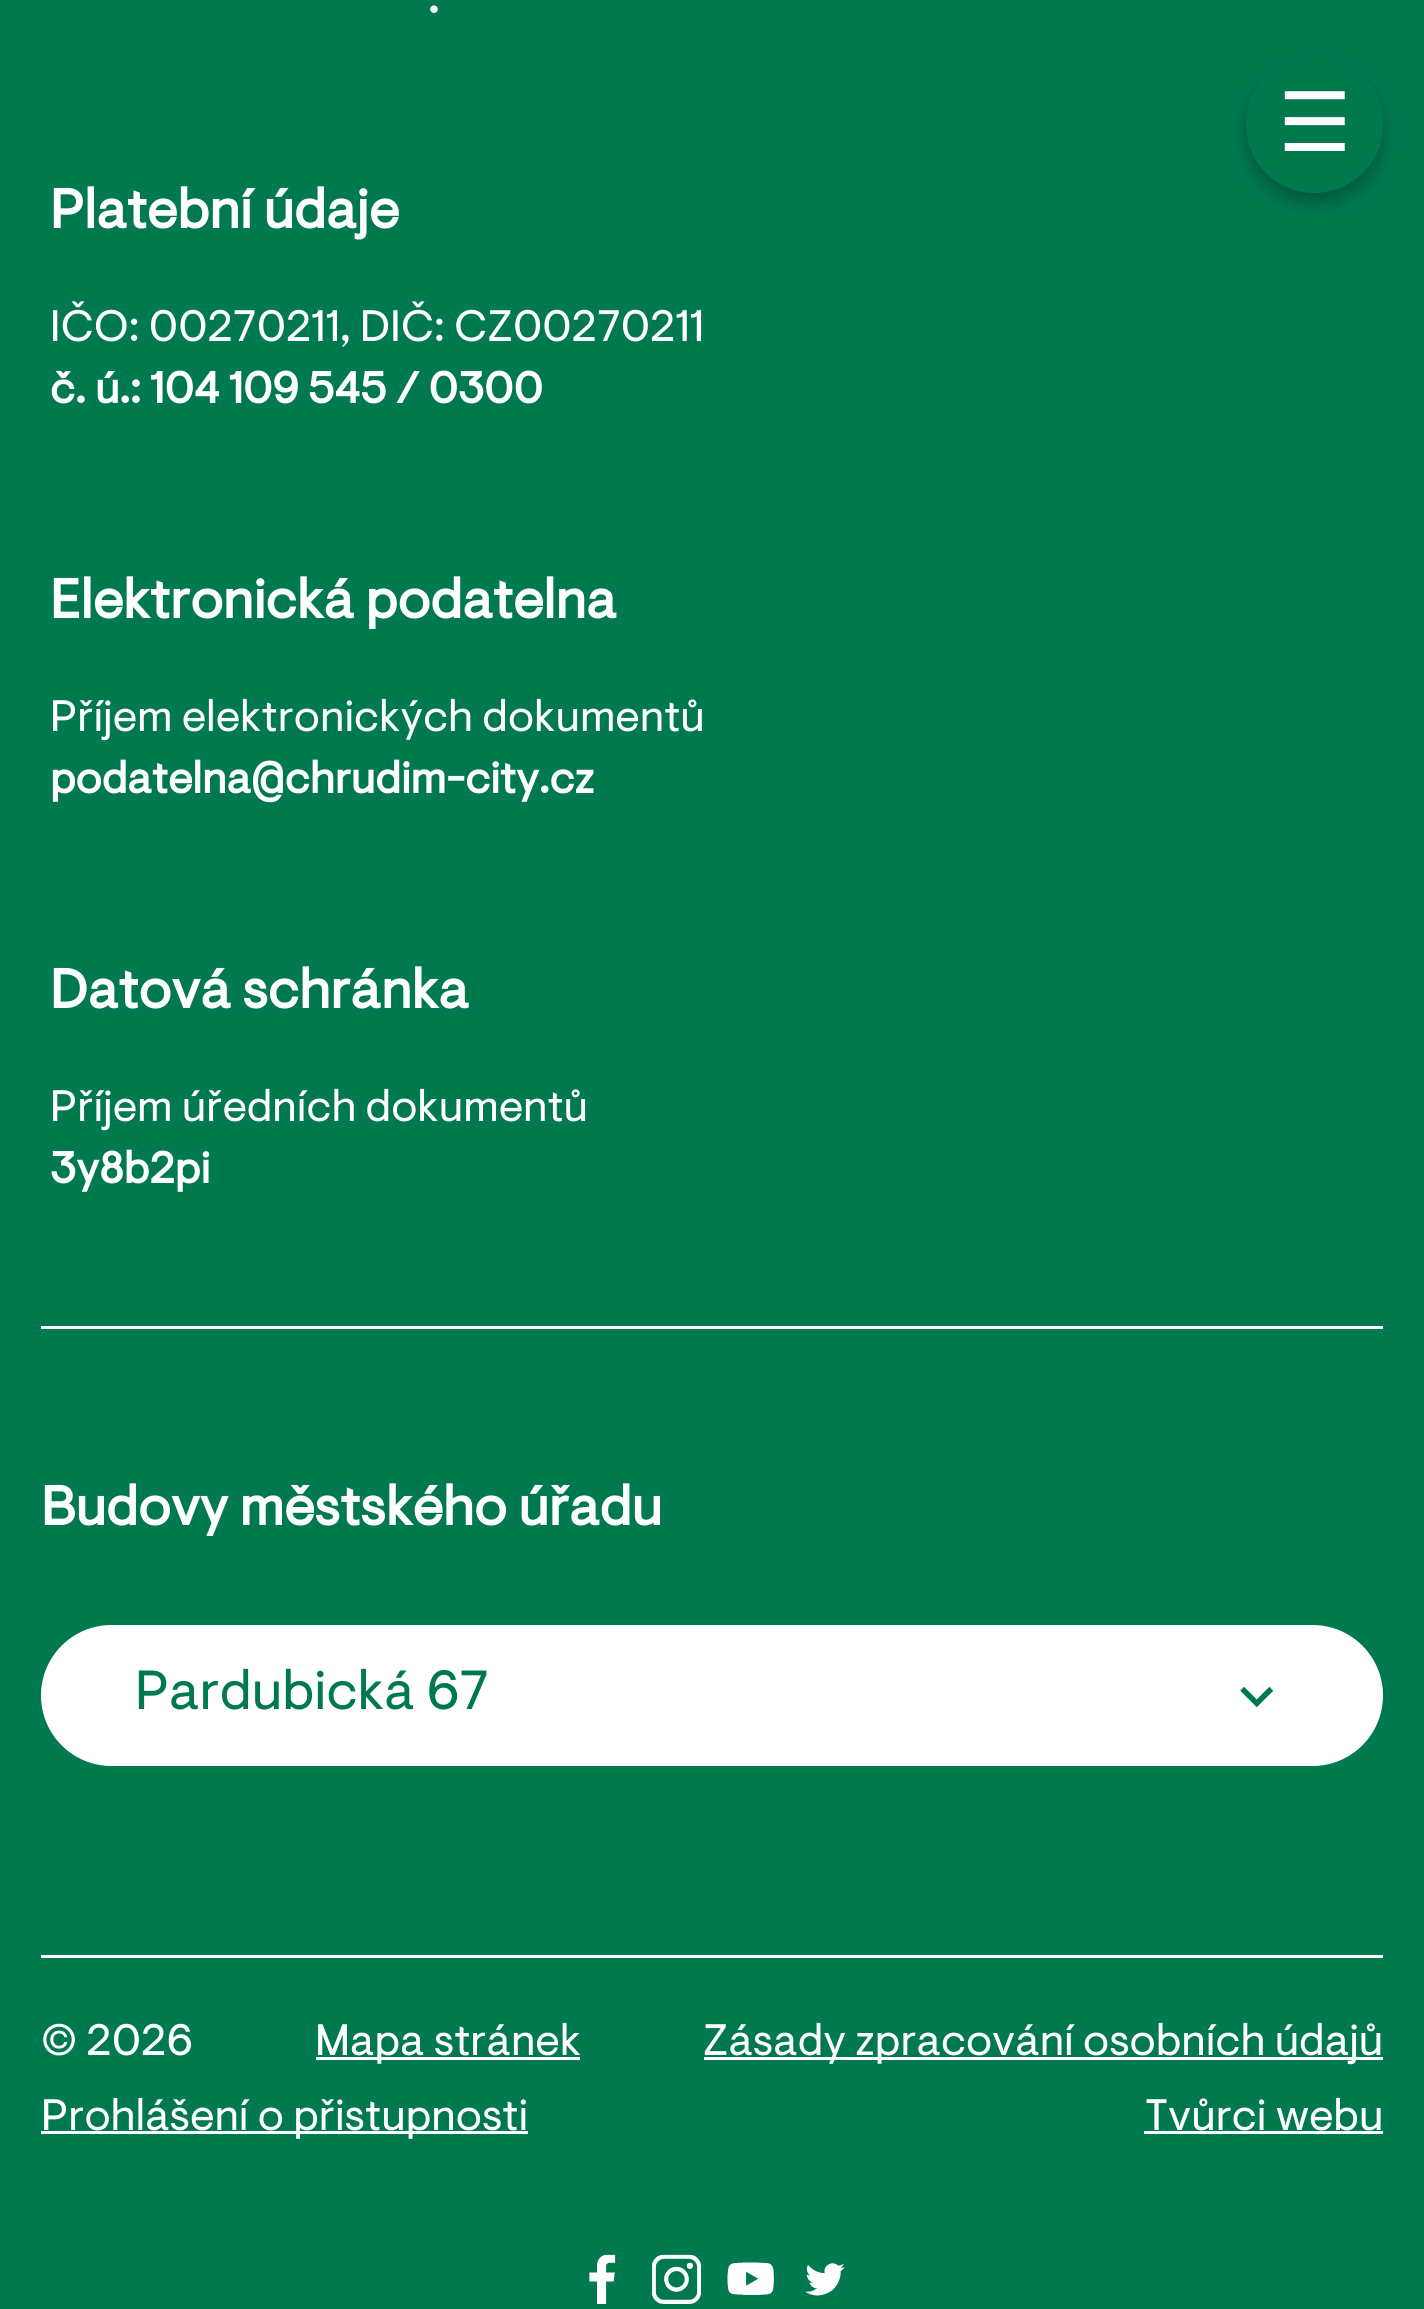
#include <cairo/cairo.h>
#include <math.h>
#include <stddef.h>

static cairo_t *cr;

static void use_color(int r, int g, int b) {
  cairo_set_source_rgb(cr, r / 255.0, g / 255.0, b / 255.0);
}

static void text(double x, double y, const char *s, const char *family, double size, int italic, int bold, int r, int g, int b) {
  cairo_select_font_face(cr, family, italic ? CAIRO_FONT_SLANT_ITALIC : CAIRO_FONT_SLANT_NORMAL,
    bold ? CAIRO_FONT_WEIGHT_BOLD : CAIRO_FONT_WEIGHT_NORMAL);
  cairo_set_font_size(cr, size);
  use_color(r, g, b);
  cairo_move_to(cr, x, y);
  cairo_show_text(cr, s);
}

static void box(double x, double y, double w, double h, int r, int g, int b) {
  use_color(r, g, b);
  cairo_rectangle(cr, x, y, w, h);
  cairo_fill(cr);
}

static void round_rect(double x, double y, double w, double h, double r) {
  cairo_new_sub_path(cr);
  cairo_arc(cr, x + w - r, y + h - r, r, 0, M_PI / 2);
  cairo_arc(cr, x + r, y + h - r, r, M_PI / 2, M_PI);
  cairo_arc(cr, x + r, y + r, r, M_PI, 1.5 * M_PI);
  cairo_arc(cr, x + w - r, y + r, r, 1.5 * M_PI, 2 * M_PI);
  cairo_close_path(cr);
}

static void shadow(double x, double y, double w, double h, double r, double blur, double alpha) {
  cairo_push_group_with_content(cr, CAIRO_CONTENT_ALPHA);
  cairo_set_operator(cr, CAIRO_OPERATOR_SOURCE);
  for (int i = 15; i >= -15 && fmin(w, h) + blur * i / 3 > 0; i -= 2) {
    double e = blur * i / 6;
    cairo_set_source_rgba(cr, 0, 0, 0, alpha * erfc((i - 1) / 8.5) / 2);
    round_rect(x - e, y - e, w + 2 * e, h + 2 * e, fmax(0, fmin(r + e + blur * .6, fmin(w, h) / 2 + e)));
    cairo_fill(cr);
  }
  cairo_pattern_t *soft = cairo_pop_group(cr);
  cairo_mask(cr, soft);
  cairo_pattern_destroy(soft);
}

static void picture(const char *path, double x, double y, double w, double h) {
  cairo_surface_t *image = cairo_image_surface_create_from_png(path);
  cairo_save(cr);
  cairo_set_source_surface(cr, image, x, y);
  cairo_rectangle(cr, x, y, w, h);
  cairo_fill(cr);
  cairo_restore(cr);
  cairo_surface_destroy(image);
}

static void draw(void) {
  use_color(0, 121, 79);
  cairo_paint(cr);
  box(41, 1326, 1342, 3, 255, 255, 255);
  round_rect(44, 1628, 1336, 135, 67.5);
  cairo_fill_preserve(cr);
  cairo_set_line_width(cr, 6);
  cairo_stroke(cr);
  picture("img_01.png", 1240, 1686, 34, 22);
  box(41, 1955, 1342, 3, 255, 255, 255);
  box(316, 2057, 264, 3, 255, 255, 255);
  box(704, 2057, 679, 3, 255, 255, 255);
  box(41, 2131, 487, 3, 255, 255, 255);
  box(1144, 2131, 239, 3, 255, 255, 255);
  picture("img_02.png", 589, 2254, 27, 50);
  picture("img_03.png", 652, 2254, 49, 50);
  picture("img_04.png", 727, 2262, 47, 33);
  picture("img_05.png", 805, 2263, 40, 33);
  use_color(0, 0, 0);
  shadow(1246, 66, 137, 138, 68.5, 8, 0.25);
  use_color(0, 121, 79);
  round_rect(1246, 55, 137, 138, 68.5);
  cairo_fill(cr);
  text(428, 13, ".", "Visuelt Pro", 44, 0, 1, 255, 255, 255);
  text(50, 228, "Platební údaje", "Visuelt Pro", 55, 0, 1, 255, 255, 255);
  text(50, 341, "IČO: 00270211, DIČ: CZ00270211", "Visuelt Pro", 44, 0, 0, 255, 255, 255);
  text(50, 403, "č. ú.: 104 109 545 / 0300", "Visuelt Pro", 44, 0, 1, 255, 255, 255);
  text(50, 618, "Elektronická podatelna", "Visuelt Pro", 55, 0, 1, 255, 255, 255);
  text(50, 731, "Příjem elektronických dokumentů", "Visuelt Pro", 44, 0, 0, 255, 255, 255);
  text(50, 793, "podatelna@chrudim-city.cz", "Visuelt Pro", 44, 0, 1, 255, 255, 255);
  text(50, 1008, "Datová schránka", "Visuelt Pro", 55, 0, 1, 255, 255, 255);
  text(50, 1121, "Příjem úředních dokumentů", "Visuelt Pro", 44, 0, 0, 255, 255, 255);
  text(50, 1183, "3y8b2pi", "Visuelt Pro", 44, 0, 1, 255, 255, 255);
  text(41, 1525, "Budovy městského úřadu", "Visuelt Pro", 55, 0, 1, 255, 255, 255);
  text(135, 1709, "Pardubická 67", "Visuelt Pro", 55, 0, 0, 0, 121, 79);
  text(41, 2055, "© 2026", "Visuelt Pro", 44, 0, 0, 255, 255, 255);
  text(315, 2055, "Mapa stránek", "Visuelt Pro", 44, 0, 0, 255, 255, 255);
  text(703, 2055, "Zásady zpracování osobních údajů", "Visuelt Pro", 44, 0, 0, 255, 255, 255);
  text(41, 2130, "Prohlášení o přistupnosti", "Visuelt Pro", 44, 0, 0, 255, 255, 255);
  text(1145, 2130, "Tvůrci webu", "Visuelt Pro", 44, 0, 0, 255, 255, 255);
  text(1278, 151, "☰", "DejaVu Sans", 82, 0, 0, 255, 255, 255);
}

int main(void) {
  cairo_surface_t *surface = cairo_image_surface_create(CAIRO_FORMAT_RGB24, 1424, 2309);
  cr = cairo_create(surface);
  cairo_font_options_t *options = cairo_font_options_create();
  cairo_font_options_set_hint_metrics(options, CAIRO_HINT_METRICS_OFF);
  cairo_font_options_set_hint_style(options, CAIRO_HINT_STYLE_NONE);
  cairo_set_font_options(cr, options);
  cairo_set_miter_limit(cr, 4);
  draw();
  cairo_surface_write_to_png(surface, "out.png");
  cairo_font_options_destroy(options);
  cairo_destroy(cr);
  cairo_surface_destroy(surface);
  return 0;
}
